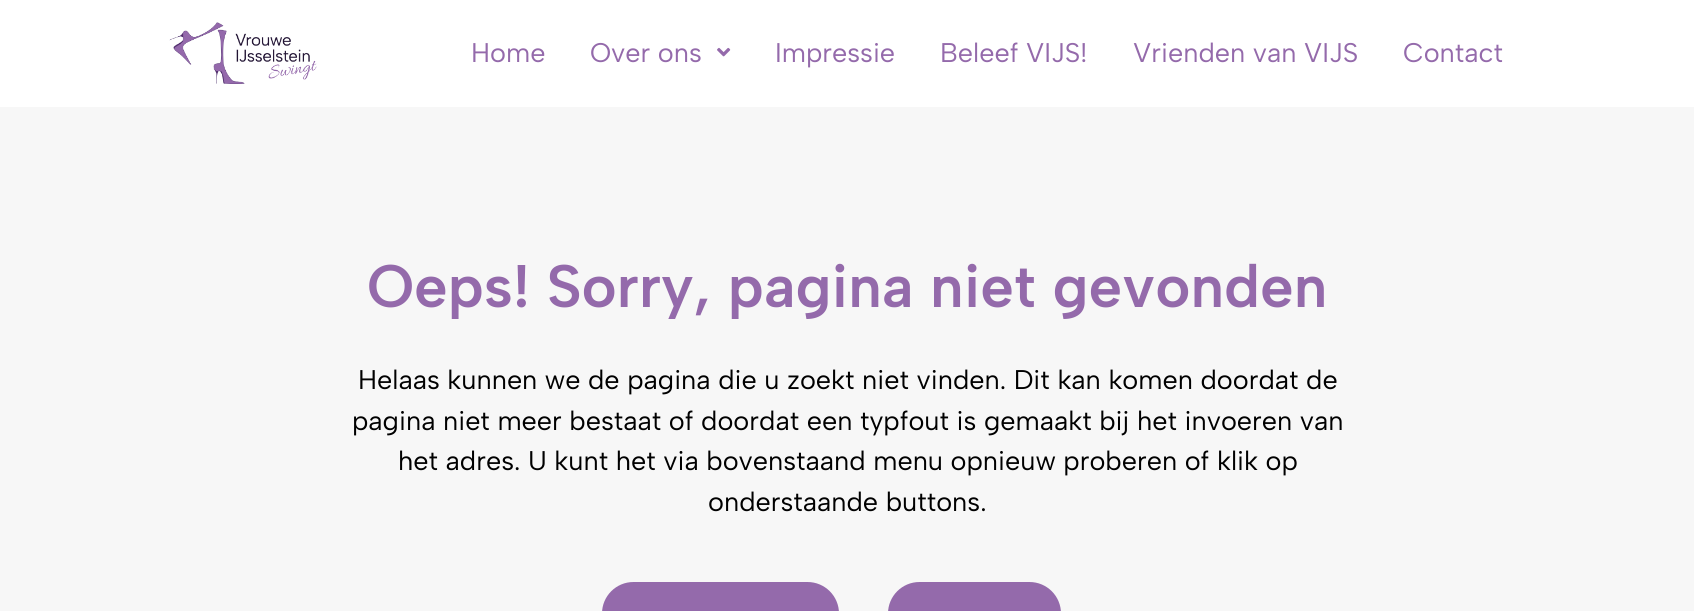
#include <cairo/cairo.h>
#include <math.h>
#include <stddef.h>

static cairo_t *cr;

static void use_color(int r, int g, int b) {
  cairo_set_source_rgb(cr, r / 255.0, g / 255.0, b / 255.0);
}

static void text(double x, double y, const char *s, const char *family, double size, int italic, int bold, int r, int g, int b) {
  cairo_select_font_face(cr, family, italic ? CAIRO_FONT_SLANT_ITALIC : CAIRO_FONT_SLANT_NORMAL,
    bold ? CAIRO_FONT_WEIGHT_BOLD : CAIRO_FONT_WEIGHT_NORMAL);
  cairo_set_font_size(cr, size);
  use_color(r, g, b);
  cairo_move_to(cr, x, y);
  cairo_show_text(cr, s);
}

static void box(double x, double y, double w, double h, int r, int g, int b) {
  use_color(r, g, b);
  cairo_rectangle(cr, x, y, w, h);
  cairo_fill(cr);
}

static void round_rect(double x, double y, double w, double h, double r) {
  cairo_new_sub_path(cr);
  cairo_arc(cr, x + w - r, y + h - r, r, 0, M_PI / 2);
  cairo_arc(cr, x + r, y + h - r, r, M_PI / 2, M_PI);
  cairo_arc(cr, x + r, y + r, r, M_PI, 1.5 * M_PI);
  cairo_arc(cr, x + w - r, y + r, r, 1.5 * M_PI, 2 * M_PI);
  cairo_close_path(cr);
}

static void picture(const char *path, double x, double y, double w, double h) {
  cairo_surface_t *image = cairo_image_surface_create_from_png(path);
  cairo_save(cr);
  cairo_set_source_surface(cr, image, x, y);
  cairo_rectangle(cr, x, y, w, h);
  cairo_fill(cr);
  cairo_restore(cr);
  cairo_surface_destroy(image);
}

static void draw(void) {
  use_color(255, 255, 255);
  cairo_paint(cr);
  picture("img_01.png", 169, 22, 148, 62);
  picture("img_02.png", 717, 47, 14, 10);
  box(0, 107, 1694, 504, 247, 247, 247);
  use_color(148, 106, 171);
  round_rect(602, 582, 237, 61, 31.5);
  cairo_fill(cr);
  round_rect(888, 582, 173, 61, 31.5);
  cairo_fill(cr);
  text(471, 62, "Home", "Albert Sans", 27, 0, 0, 148, 106, 171);
  text(590, 62, "Over ons", "Albert Sans", 27, 0, 0, 148, 106, 171);
  text(775, 62, "Impressie", "Albert Sans", 27, 0, 0, 148, 106, 171);
  text(940, 62, "Beleef VIJS!", "Albert Sans", 27, 0, 0, 148, 106, 171);
  text(1133, 62, "Vrienden van VIJS", "Albert Sans", 27, 0, 0, 148, 106, 171);
  text(1403, 62, "Contact", "Albert Sans", 27, 0, 0, 148, 106, 171);
  text(367, 307, "Oeps! Sorry, pagina niet gevonden", "Albert Sans SemiBold", 60, 0, 0, 148, 106, 171);
  text(358, 389, "Helaas kunnen we de pagina die u zoekt niet vinden. Dit kan komen doordat de", "Albert Sans", 27, 0, 0, 0, 0, 0);
  text(352, 430, "pagina niet meer bestaat of doordat een typfout is gemaakt bij het invoeren van", "Albert Sans", 27, 0, 0, 0, 0, 0);
  text(398, 470, "het adres. U kunt het via bovenstaand menu opnieuw proberen of klik op", "Albert Sans", 27, 0, 0, 0, 0, 0);
  text(708, 511, "onderstaande buttons.", "Albert Sans", 27, 0, 0, 0, 0, 0);
}

int main(void) {
  cairo_surface_t *surface = cairo_image_surface_create(CAIRO_FORMAT_RGB24, 1694, 611);
  cr = cairo_create(surface);
  cairo_font_options_t *options = cairo_font_options_create();
  cairo_font_options_set_hint_metrics(options, CAIRO_HINT_METRICS_OFF);
  cairo_font_options_set_hint_style(options, CAIRO_HINT_STYLE_NONE);
  cairo_set_font_options(cr, options);
  cairo_set_miter_limit(cr, 4);
  draw();
  cairo_surface_write_to_png(surface, "out.png");
  cairo_font_options_destroy(options);
  cairo_destroy(cr);
  cairo_surface_destroy(surface);
  return 0;
}
